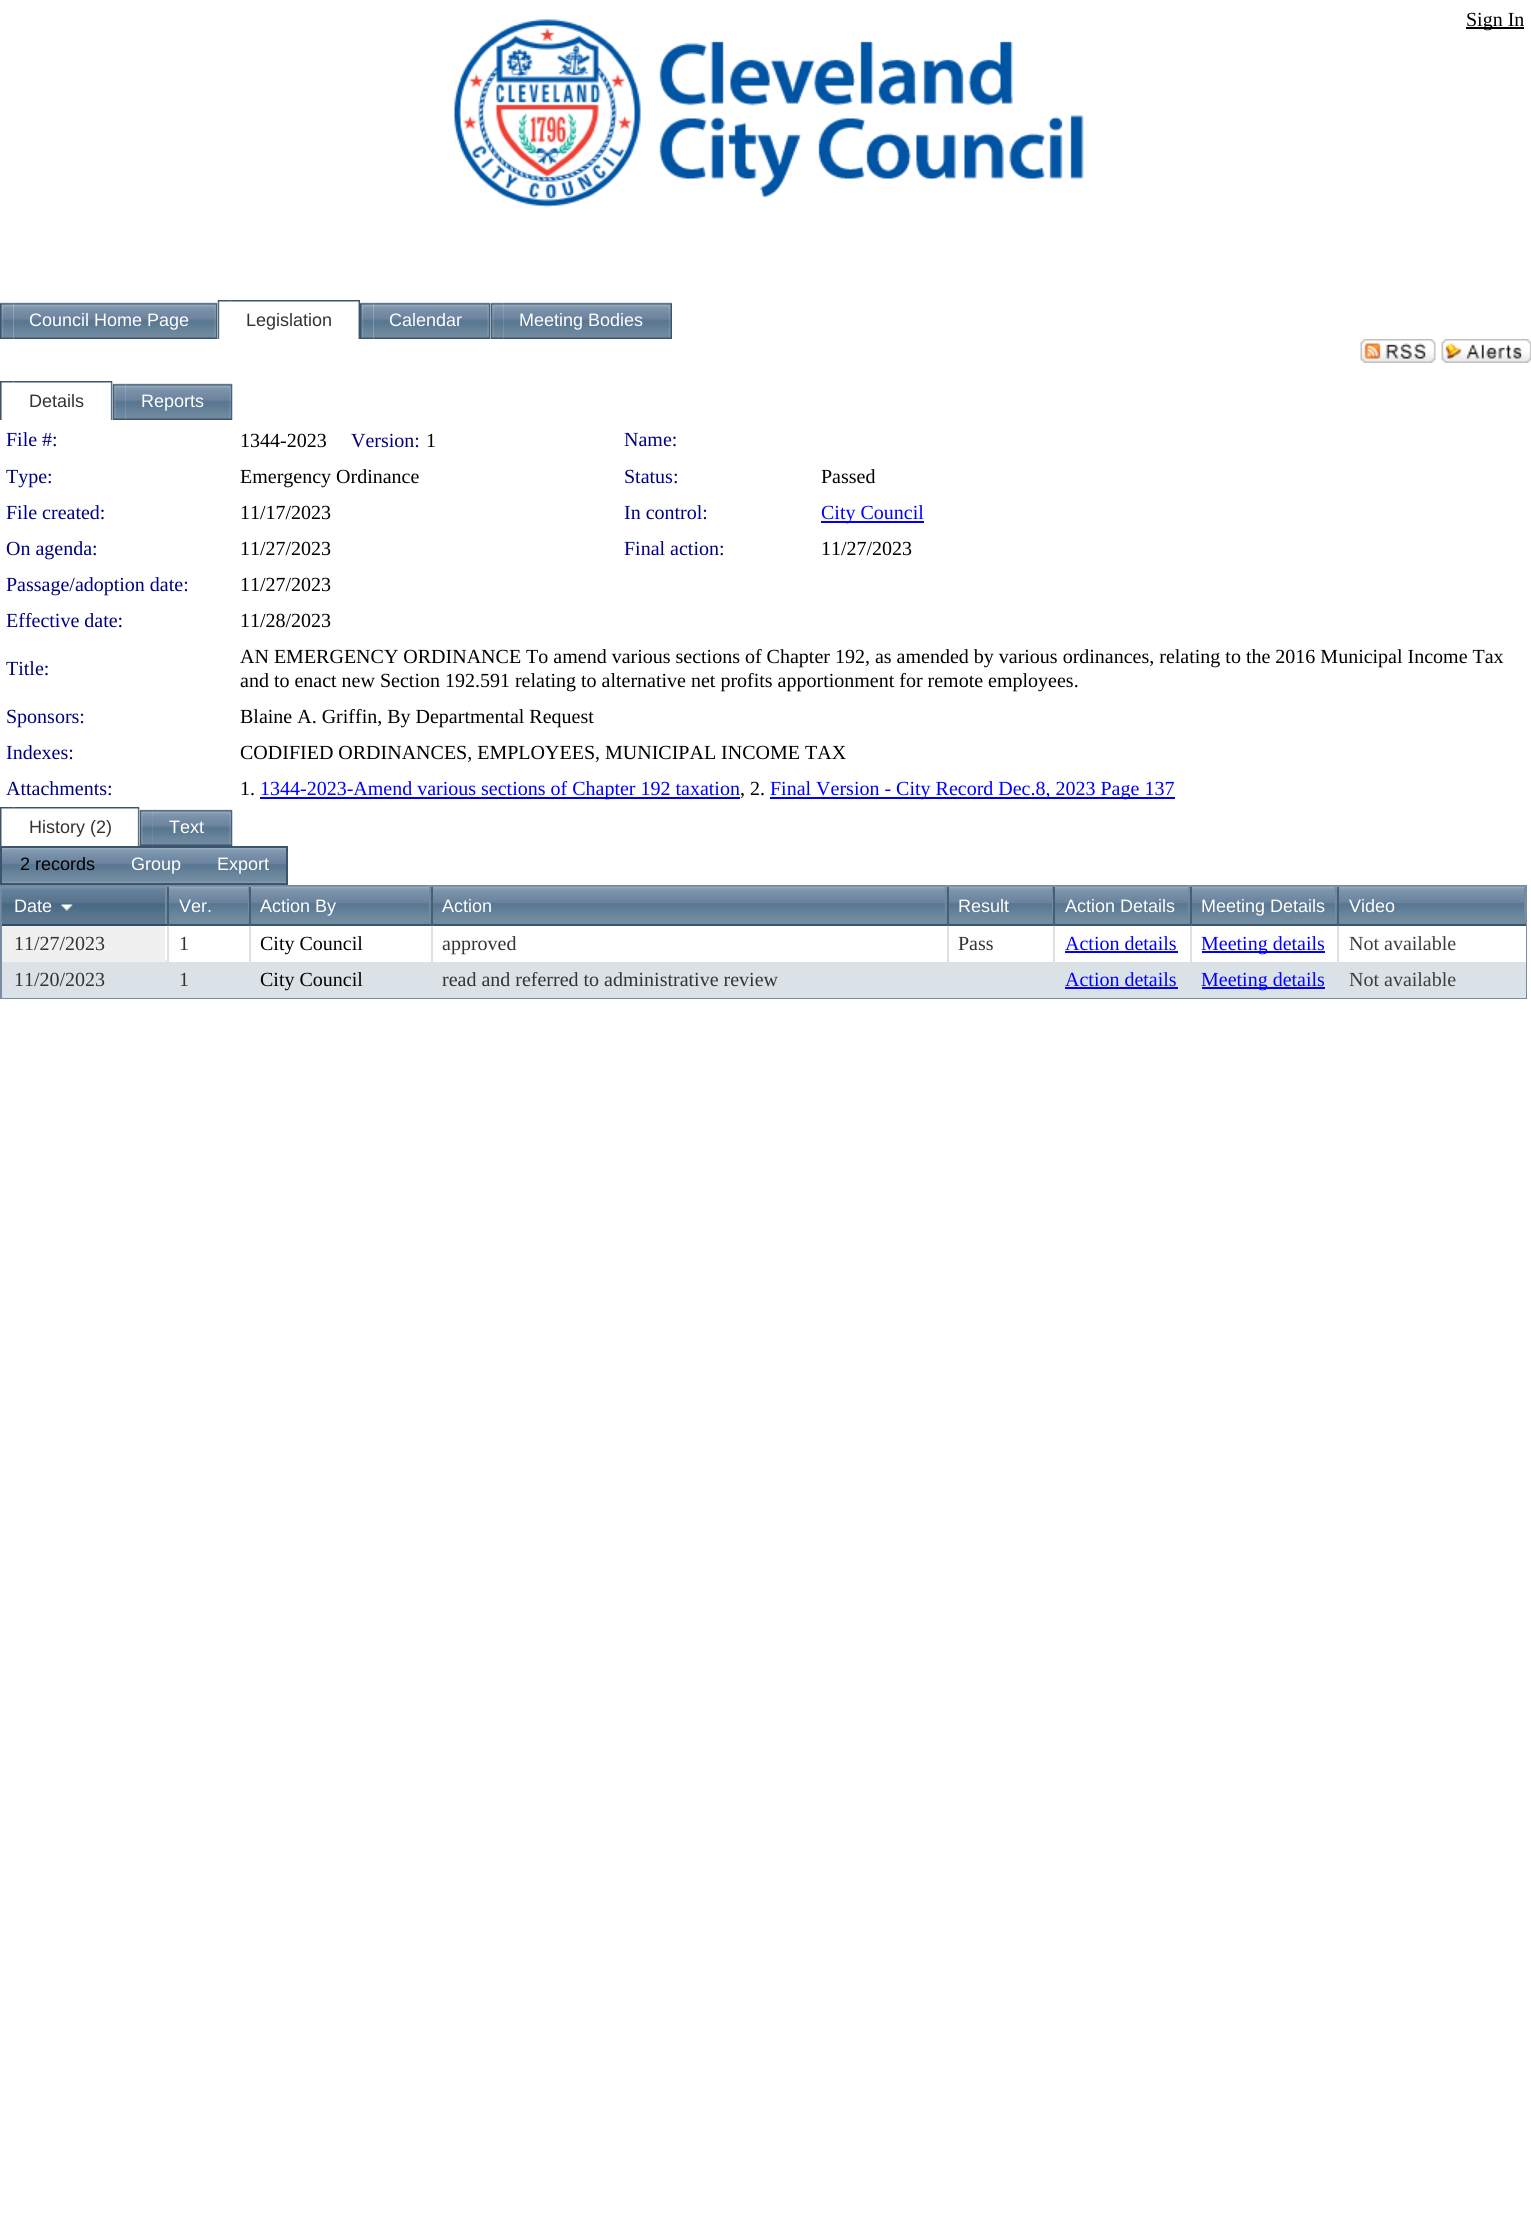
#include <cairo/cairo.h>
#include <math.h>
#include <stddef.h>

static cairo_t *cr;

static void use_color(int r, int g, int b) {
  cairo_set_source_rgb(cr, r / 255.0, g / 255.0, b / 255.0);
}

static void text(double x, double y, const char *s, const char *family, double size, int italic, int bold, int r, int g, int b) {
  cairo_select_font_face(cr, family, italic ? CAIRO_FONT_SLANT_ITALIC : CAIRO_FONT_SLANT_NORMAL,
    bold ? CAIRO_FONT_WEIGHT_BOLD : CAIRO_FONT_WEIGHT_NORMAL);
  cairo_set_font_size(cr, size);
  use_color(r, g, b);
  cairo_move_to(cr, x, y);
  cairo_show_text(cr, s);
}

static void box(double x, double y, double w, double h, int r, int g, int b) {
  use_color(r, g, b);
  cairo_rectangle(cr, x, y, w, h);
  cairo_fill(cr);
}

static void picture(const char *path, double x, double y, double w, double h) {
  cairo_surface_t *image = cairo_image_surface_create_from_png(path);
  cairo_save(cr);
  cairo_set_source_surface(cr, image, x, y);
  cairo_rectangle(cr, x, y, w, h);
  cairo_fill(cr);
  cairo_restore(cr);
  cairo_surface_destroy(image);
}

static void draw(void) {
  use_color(255, 255, 255);
  cairo_paint(cr);
  picture("img_01.png", 454, 19, 630, 189);
  box(1466, 27, 58, 2, 0, 0, 0);
  picture("img_02.png", 0, 302, 14, 37);
  picture("img_03.png", 13, 302, 205, 37);
  picture("img_04.png", 217, 300, 14, 39);
  picture("img_05.png", 231, 300, 129, 39);
  picture("img_02.png", 360, 302, 14, 37);
  picture("img_06.png", 373, 302, 118, 37);
  picture("img_07.png", 490, 302, 15, 37);
  picture("img_08.png", 504, 302, 168, 37);
  picture("img_09.png", 1360, 339, 76, 24);
  picture("img_10.png", 1441, 339, 90, 24);
  picture("img_11.png", 0, 381, 14, 39);
  picture("img_12.png", 13, 381, 100, 39);
  picture("img_13.png", 112, 383, 15, 37);
  picture("img_14.png", 126, 383, 107, 37);
  box(821, 521, 103, 2, 0, 0, 255);
  box(260, 797, 480, 2, 0, 0, 255);
  box(770, 797, 405, 2, 0, 0, 255);
  picture("img_15.png", 0, 807, 14, 39);
  picture("img_16.png", 13, 807, 127, 39);
  picture("img_17.png", 139, 809, 15, 37);
  picture("img_18.png", 153, 809, 80, 37);
  picture("img_19.png", 2, 848, 284, 35);
  cairo_rectangle(cr, 1, 847, 286, 37);
  use_color(61, 85, 108);
  cairo_stroke(cr);
  cairo_rectangle(cr, 1, 886, 1525, 112);
  use_color(118, 140, 165);
  cairo_stroke(cr);
  box(2, 920, 163, 4, 92, 121, 144);
  picture("img_20.png", 1, 887, 164, 35);
  box(165, 887, 2, 39, 117, 142, 164);
  box(2, 924, 165, 2, 51, 77, 101);
  picture("img_21.png", 61, 904, 12, 7);
  box(169, 920, 79, 4, 113, 140, 161);
  picture("img_22.png", 166, 886, 83, 36);
  box(248, 887, 1, 39, 114, 139, 161);
  box(167, 924, 82, 2, 61, 85, 108);
  box(167, 887, 2, 39, 69, 95, 119);
  box(251, 920, 178, 4, 113, 140, 161);
  picture("img_23.png", 249, 886, 182, 36);
  box(429, 887, 2, 39, 114, 139, 161);
  box(249, 924, 182, 2, 61, 85, 108);
  box(249, 887, 2, 39, 69, 95, 119);
  box(433, 920, 512, 4, 113, 140, 161);
  picture("img_24.png", 430, 886, 517, 36);
  box(945, 887, 2, 39, 114, 139, 161);
  box(431, 924, 516, 2, 61, 85, 108);
  box(431, 887, 2, 39, 69, 95, 119);
  box(949, 920, 103, 4, 113, 140, 161);
  picture("img_25.png", 946, 886, 107, 36);
  box(1052, 887, 1, 39, 114, 139, 161);
  box(947, 924, 106, 2, 61, 85, 108);
  box(947, 887, 2, 39, 69, 95, 119);
  box(1055, 920, 133, 4, 113, 140, 161);
  picture("img_26.png", 1053, 886, 137, 36);
  box(1188, 887, 2, 39, 114, 139, 161);
  box(1053, 924, 137, 2, 61, 85, 108);
  box(1053, 887, 2, 39, 69, 95, 119);
  box(1192, 920, 143, 4, 113, 140, 161);
  picture("img_27.png", 1189, 886, 148, 36);
  box(1335, 887, 2, 39, 114, 139, 161);
  box(1190, 924, 147, 2, 61, 85, 108);
  box(1190, 887, 2, 39, 69, 95, 119);
  box(1339, 920, 185, 4, 113, 140, 161);
  picture("img_28.png", 1336, 886, 190, 36);
  box(1524, 887, 2, 39, 114, 139, 161);
  box(1337, 924, 189, 2, 61, 85, 108);
  box(1337, 887, 2, 39, 69, 95, 119);
  box(2, 926, 163, 34, 240, 240, 240);
  box(2, 960, 165, 2, 240, 240, 240);
  box(167, 926, 2, 36, 218, 226, 232);
  box(249, 926, 2, 36, 218, 226, 232);
  box(431, 926, 2, 36, 218, 226, 232);
  box(947, 926, 2, 36, 218, 226, 232);
  box(1053, 926, 2, 36, 218, 226, 232);
  box(1065, 951, 113, 2, 0, 0, 255);
  box(1190, 926, 2, 36, 218, 226, 232);
  box(1202, 951, 123, 2, 0, 0, 255);
  box(1525, 926, 1, 36, 255, 255, 255);
  box(1337, 926, 2, 36, 218, 226, 232);
  box(2, 962, 1524, 36, 218, 226, 232);
  box(1065, 987, 113, 2, 0, 0, 255);
  box(1202, 987, 123, 2, 0, 0, 255);
  text(1466, 26, "Sign In", "Liberation Serif", 20, 0, 0, 0, 0, 0);
  text(29, 326, "Council Home Page", "Liberation Sans", 18, 0, 0, 255, 255, 255);
  text(246, 326, "Legislation", "Liberation Sans", 18, 0, 0, 51, 51, 51);
  text(389, 326, "Calendar", "Liberation Sans", 18, 0, 0, 255, 255, 255);
  text(519, 326, "Meeting Bodies", "Liberation Sans", 18, 0, 0, 255, 255, 255);
  text(29, 407, "Details", "Liberation Sans", 18, 0, 0, 51, 51, 51);
  text(141, 407, "Reports", "Liberation Sans", 18, 0, 0, 255, 255, 255);
  text(6, 446, "File #:", "Liberation Serif", 20, 0, 0, 0, 0, 128);
  text(240, 447, "1344-2023", "Liberation Serif", 20, 0, 0, 0, 0, 0);
  text(351, 447, "Version:", "Liberation Serif", 20, 0, 0, 0, 0, 128);
  text(426, 447, "1", "Liberation Serif", 20, 0, 0, 0, 0, 0);
  text(624, 446, "Name:", "Liberation Serif", 20, 0, 0, 0, 0, 128);
  text(6, 483, "Type:", "Liberation Serif", 20, 0, 0, 0, 0, 128);
  text(240, 483, "Emergency Ordinance", "Liberation Serif", 20, 0, 0, 0, 0, 0);
  text(624, 483, "Status:", "Liberation Serif", 20, 0, 0, 0, 0, 128);
  text(821, 483, "Passed", "Liberation Serif", 20, 0, 0, 0, 0, 0);
  text(6, 519, "File created:", "Liberation Serif", 20, 0, 0, 0, 0, 128);
  text(240, 519, "11/17/2023", "Liberation Serif", 20, 0, 0, 0, 0, 0);
  text(624, 519, "In control:", "Liberation Serif", 20, 0, 0, 0, 0, 128);
  text(821, 519, "City Council", "Liberation Serif", 20, 0, 0, 0, 0, 255);
  text(6, 555, "On agenda:", "Liberation Serif", 20, 0, 0, 0, 0, 128);
  text(240, 555, "11/27/2023", "Liberation Serif", 20, 0, 0, 0, 0, 0);
  text(624, 555, "Final action:", "Liberation Serif", 20, 0, 0, 0, 0, 128);
  text(821, 555, "11/27/2023", "Liberation Serif", 20, 0, 0, 0, 0, 0);
  text(6, 591, "Passage/adoption date:", "Liberation Serif", 20, 0, 0, 0, 0, 128);
  text(240, 591, "11/27/2023", "Liberation Serif", 20, 0, 0, 0, 0, 0);
  text(6, 627, "Effective date:", "Liberation Serif", 20, 0, 0, 0, 0, 128);
  text(240, 627, "11/28/2023", "Liberation Serif", 20, 0, 0, 0, 0, 0);
  text(6, 675, "Title:", "Liberation Serif", 20, 0, 0, 0, 0, 128);
  text(240, 663, "AN EMERGENCY ORDINANCE To amend various sections of Chapter 192, as amended by various ordinances, relating to the 2016 Municipal Income Tax", "Liberation Serif", 20, 0, 0, 0, 0, 0);
  text(240, 687, "and to enact new Section 192.591 relating to alternative net profits apportionment for remote employees.", "Liberation Serif", 20, 0, 0, 0, 0, 0);
  text(6, 723, "Sponsors:", "Liberation Serif", 20, 0, 0, 0, 0, 128);
  text(240, 723, "Blaine A. Griffin, By Departmental Request", "Liberation Serif", 20, 0, 0, 0, 0, 0);
  text(6, 759, "Indexes:", "Liberation Serif", 20, 0, 0, 0, 0, 128);
  text(240, 759, "CODIFIED ORDINANCES, EMPLOYEES, MUNICIPAL INCOME TAX", "Liberation Serif", 20, 0, 0, 0, 0, 0);
  text(6, 795, "Attachments:", "Liberation Serif", 20, 0, 0, 0, 0, 128);
  text(240, 795, "1.", "Liberation Serif", 20, 0, 0, 0, 0, 0);
  text(260, 795, "1344-2023-Amend various sections of Chapter 192 taxation", "Liberation Serif", 20, 0, 0, 0, 0, 255);
  text(740, 795, ", 2.", "Liberation Serif", 20, 0, 0, 0, 0, 0);
  text(770, 795, "Final Version - City Record Dec.8, 2023 Page 137", "Liberation Serif", 20, 0, 0, 0, 0, 255);
  text(29, 833, "History (2)", "Liberation Sans", 18, 0, 0, 51, 51, 51);
  text(169, 833, "Text", "Liberation Sans", 18, 0, 0, 255, 255, 255);
  text(20, 870, "2 records", "Liberation Sans", 18, 0, 0, 0, 0, 0);
  text(131, 870, "Group", "Liberation Sans", 18, 0, 0, 255, 255, 255);
  text(217, 870, "Export", "Liberation Sans", 18, 0, 0, 255, 255, 255);
  text(14, 912, "Date", "Liberation Sans", 18, 0, 0, 255, 255, 255);
  text(179, 912, "Ver.", "Liberation Sans", 18, 0, 0, 255, 255, 255);
  text(260, 912, "Action By", "Liberation Sans", 18, 0, 0, 255, 255, 255);
  text(442, 912, "Action", "Liberation Sans", 18, 0, 0, 255, 255, 255);
  text(958, 912, "Result", "Liberation Sans", 18, 0, 0, 255, 255, 255);
  text(1065, 912, "Action Details", "Liberation Sans", 18, 0, 0, 255, 255, 255);
  text(1201, 912, "Meeting Details", "Liberation Sans", 18, 0, 0, 255, 255, 255);
  text(1349, 912, "Video", "Liberation Sans", 18, 0, 0, 255, 255, 255);
  text(14, 950, "11/27/2023", "Liberation Serif", 20, 0, 0, 51, 51, 51);
  text(179, 950, "1", "Liberation Serif", 20, 0, 0, 51, 51, 51);
  text(260, 950, "City Council", "Liberation Serif", 20, 0, 0, 0, 0, 0);
  text(442, 950, "approved", "Liberation Serif", 20, 0, 0, 51, 51, 51);
  text(958, 950, "Pass", "Liberation Serif", 20, 0, 0, 51, 51, 51);
  text(1065, 950, "Action details", "Liberation Serif", 20, 0, 0, 0, 0, 255);
  text(1201, 950, "Meeting details", "Liberation Serif", 20, 0, 0, 0, 0, 255);
  text(1349, 950, "Not available", "Liberation Serif", 20, 0, 0, 61, 61, 61);
  text(14, 986, "11/20/2023", "Liberation Serif", 20, 0, 0, 51, 51, 51);
  text(179, 986, "1", "Liberation Serif", 20, 0, 0, 51, 51, 51);
  text(260, 986, "City Council", "Liberation Serif", 20, 0, 0, 0, 0, 0);
  text(442, 986, "read and referred to administrative review", "Liberation Serif", 20, 0, 0, 51, 51, 51);
  text(1065, 986, "Action details", "Liberation Serif", 20, 0, 0, 0, 0, 255);
  text(1201, 986, "Meeting details", "Liberation Serif", 20, 0, 0, 0, 0, 255);
  text(1349, 986, "Not available", "Liberation Serif", 20, 0, 0, 61, 61, 61);
}

int main(void) {
  cairo_surface_t *surface = cairo_image_surface_create(CAIRO_FORMAT_RGB24, 1531, 2229);
  cr = cairo_create(surface);
  cairo_font_options_t *options = cairo_font_options_create();
  cairo_font_options_set_hint_metrics(options, CAIRO_HINT_METRICS_OFF);
  cairo_font_options_set_hint_style(options, CAIRO_HINT_STYLE_NONE);
  cairo_set_font_options(cr, options);
  cairo_set_miter_limit(cr, 4);
  draw();
  cairo_surface_write_to_png(surface, "out.png");
  cairo_font_options_destroy(options);
  cairo_destroy(cr);
  cairo_surface_destroy(surface);
  return 0;
}
